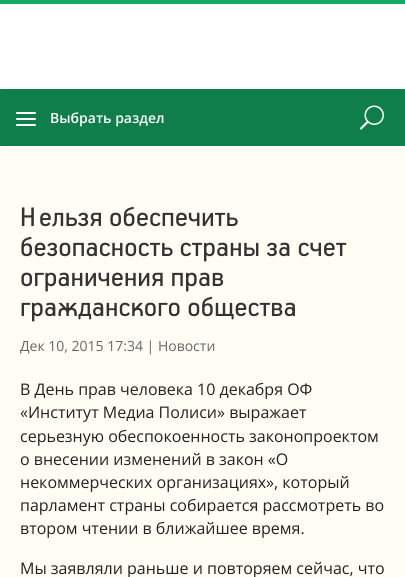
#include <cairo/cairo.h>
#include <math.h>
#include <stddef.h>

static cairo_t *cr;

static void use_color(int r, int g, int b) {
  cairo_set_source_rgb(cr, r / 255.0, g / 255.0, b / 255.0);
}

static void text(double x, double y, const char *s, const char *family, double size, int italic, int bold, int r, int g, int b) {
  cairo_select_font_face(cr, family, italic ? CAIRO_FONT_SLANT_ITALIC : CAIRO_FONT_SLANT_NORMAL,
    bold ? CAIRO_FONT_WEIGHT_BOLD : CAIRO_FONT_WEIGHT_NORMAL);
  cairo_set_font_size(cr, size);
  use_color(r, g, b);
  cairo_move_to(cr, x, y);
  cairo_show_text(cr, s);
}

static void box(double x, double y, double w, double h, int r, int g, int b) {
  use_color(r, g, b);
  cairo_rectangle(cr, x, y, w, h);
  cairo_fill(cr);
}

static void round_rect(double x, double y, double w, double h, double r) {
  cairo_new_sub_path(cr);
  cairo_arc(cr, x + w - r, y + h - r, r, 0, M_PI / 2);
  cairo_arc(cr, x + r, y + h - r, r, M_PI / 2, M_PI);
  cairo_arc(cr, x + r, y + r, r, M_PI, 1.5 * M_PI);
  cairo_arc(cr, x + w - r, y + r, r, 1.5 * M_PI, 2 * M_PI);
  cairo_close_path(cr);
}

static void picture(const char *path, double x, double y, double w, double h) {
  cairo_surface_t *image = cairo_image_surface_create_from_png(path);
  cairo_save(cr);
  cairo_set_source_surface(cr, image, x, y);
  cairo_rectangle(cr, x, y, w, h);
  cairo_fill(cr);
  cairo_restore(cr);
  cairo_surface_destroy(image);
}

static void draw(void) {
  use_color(255, 253, 244);
  cairo_paint(cr);
  box(0, 0, 405, 4, 18, 169, 103);
  box(0, 4, 405, 85, 255, 255, 255);
  box(0, 89, 405, 57, 16, 133, 79);
  use_color(15, 126, 75);
  round_rect(0, 89, 405, 57, 5);
  cairo_fill(cr);
  picture("img_01.png", 16, 112, 20, 14);
  picture("img_02.png", 359, 105, 25, 25);
  picture("img_03.png", 21, 206, 217, 21);
  picture("img_04.png", 21, 236, 326, 26);
  picture("img_05.png", 21, 272, 203, 20);
  picture("img_06.png", 21, 296, 274, 26);
  text(50, 123, "Выбрать раздел", "Open Sans SemiBold", 14, 0, 0, 255, 255, 255);
  text(20, 351, "Дек 10, 2015 17:34 | Новости", "Open Sans", 14, 0, 0, 102, 102, 102);
  text(20, 395, "В День прав человека 10 декабря ОФ", "Open Sans", 16, 0, 0, 34, 34, 34);
  text(20, 418, "«Институт Медиа Полиси» выражает", "Open Sans", 16, 0, 0, 34, 34, 34);
  text(20, 442, "серьезную обеспокоенность законопроектом", "Open Sans", 16, 0, 0, 34, 34, 34);
  text(20, 465, "о внесении изменений в закон «О", "Open Sans", 16, 0, 0, 34, 34, 34);
  text(20, 488, "некоммерческих организациях», который", "Open Sans", 16, 0, 0, 34, 34, 34);
  text(20, 511, "парламент страны собирается рассмотреть во", "Open Sans", 16, 0, 0, 34, 34, 34);
  text(20, 534, "втором чтении в ближайшее время.", "Open Sans", 16, 0, 0, 34, 34, 34);
  text(20, 574, "Мы заявляли раньше и повторяем сейчас, что", "Open Sans", 16, 0, 0, 34, 34, 34);
}

int main(void) {
  cairo_surface_t *surface = cairo_image_surface_create(CAIRO_FORMAT_RGB24, 405, 577);
  cr = cairo_create(surface);
  cairo_font_options_t *options = cairo_font_options_create();
  cairo_font_options_set_hint_metrics(options, CAIRO_HINT_METRICS_OFF);
  cairo_font_options_set_hint_style(options, CAIRO_HINT_STYLE_NONE);
  cairo_set_font_options(cr, options);
  cairo_set_miter_limit(cr, 4);
  draw();
  cairo_surface_write_to_png(surface, "out.png");
  cairo_font_options_destroy(options);
  cairo_destroy(cr);
  cairo_surface_destroy(surface);
  return 0;
}
